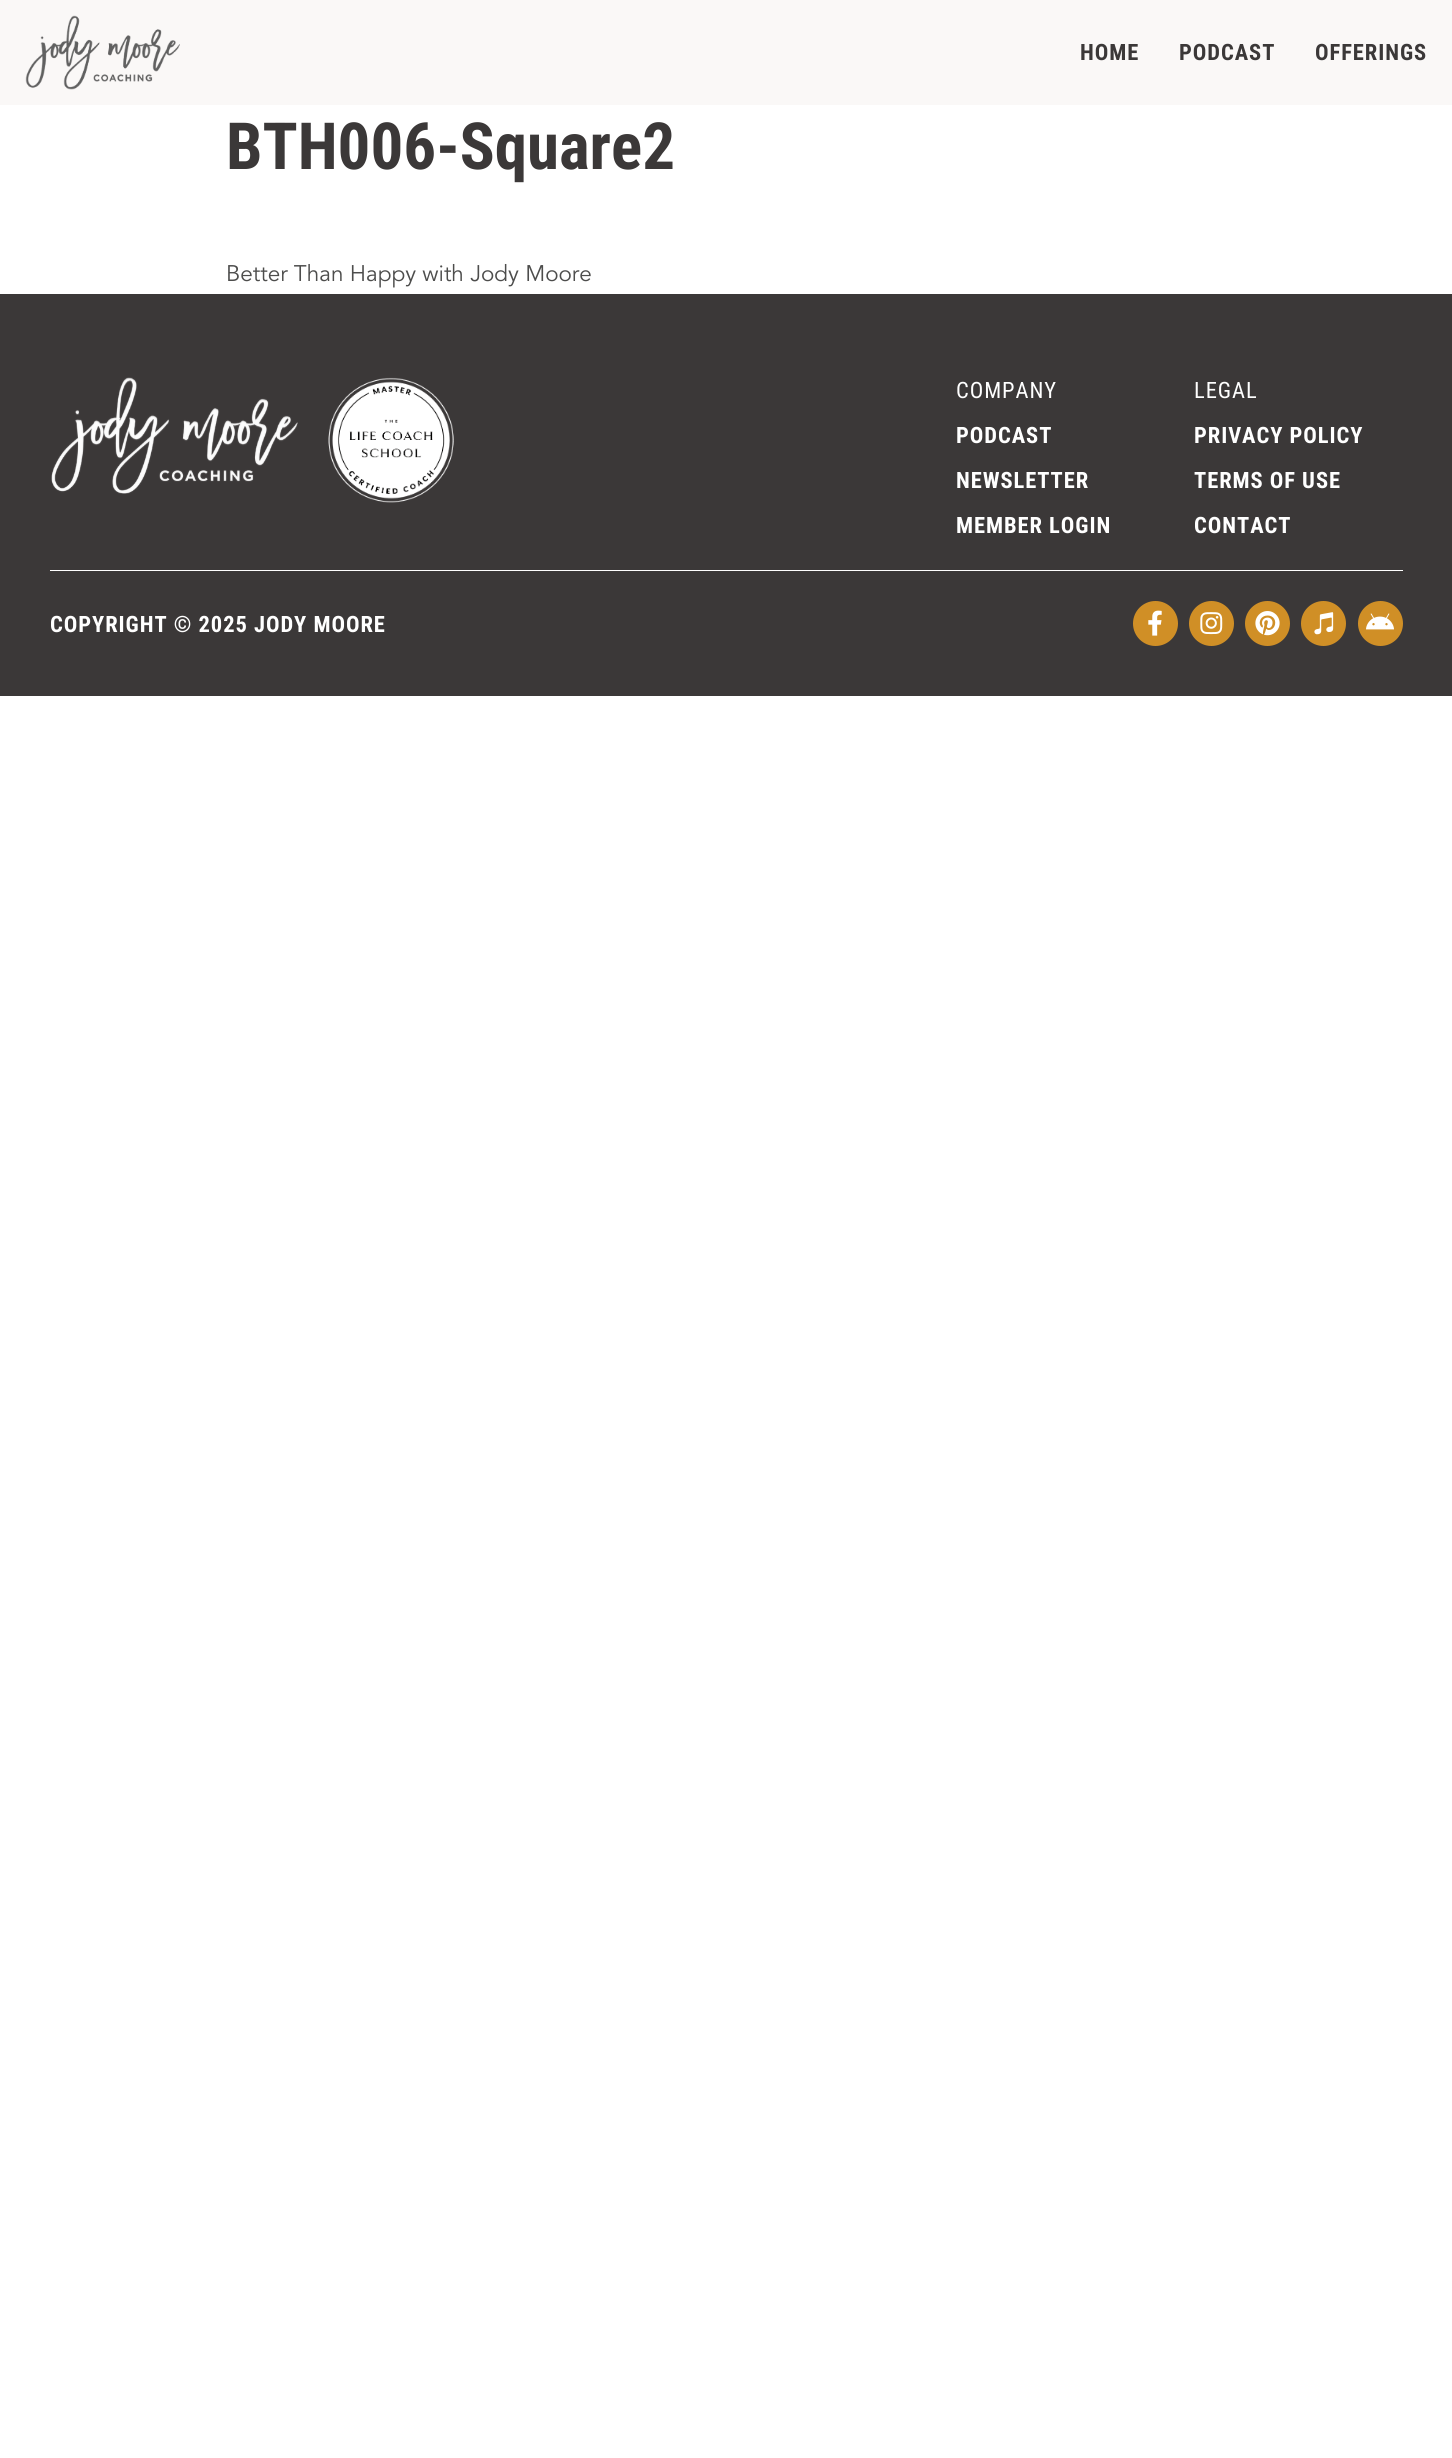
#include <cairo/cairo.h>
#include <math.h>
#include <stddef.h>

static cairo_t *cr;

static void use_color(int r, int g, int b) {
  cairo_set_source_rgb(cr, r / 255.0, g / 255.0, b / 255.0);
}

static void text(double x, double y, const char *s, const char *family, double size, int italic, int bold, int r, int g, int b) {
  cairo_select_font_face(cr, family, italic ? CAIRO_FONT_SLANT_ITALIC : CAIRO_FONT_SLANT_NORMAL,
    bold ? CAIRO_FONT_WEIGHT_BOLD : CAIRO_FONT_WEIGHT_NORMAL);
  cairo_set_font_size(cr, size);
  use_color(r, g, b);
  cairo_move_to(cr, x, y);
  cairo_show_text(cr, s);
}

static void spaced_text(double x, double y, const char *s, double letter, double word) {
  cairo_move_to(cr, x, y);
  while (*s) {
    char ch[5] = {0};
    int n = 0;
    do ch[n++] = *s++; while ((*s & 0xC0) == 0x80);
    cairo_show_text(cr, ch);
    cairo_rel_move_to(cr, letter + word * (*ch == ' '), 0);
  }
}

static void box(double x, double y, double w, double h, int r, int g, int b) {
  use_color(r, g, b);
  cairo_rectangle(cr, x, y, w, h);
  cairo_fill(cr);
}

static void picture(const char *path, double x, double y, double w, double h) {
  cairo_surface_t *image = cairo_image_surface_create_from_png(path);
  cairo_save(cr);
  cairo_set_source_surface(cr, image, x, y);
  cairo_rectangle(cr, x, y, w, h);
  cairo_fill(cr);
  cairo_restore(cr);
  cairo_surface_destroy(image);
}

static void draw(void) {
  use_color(255, 255, 255);
  cairo_paint(cr);
  box(0, 0, 1452, 105, 250, 248, 247);
  picture("img_01.png", 25, 15, 155, 75);
  box(0, 294, 1452, 402, 59, 56, 56);
  picture("img_02.png", 51, 377, 247, 117);
  picture("img_03.png", 328, 377, 126, 126);
  box(50, 570, 1353, 1, 255, 255, 255);
  use_color(208, 143, 38);
  cairo_arc(cr, 1155.5, 623.5, 21, 0, 2 * M_PI);
  cairo_fill_preserve(cr);
  cairo_set_line_width(cr, 3);
  cairo_stroke(cr);
  picture("img_04.png", 1148, 610, 14, 26);
  cairo_arc(cr, 1211.5, 623.5, 21, 0, 2 * M_PI);
  cairo_fill_preserve(cr);
  cairo_stroke(cr);
  picture("img_05.png", 1200, 612, 23, 23);
  cairo_arc(cr, 1267.5, 623.5, 21, 0, 2 * M_PI);
  cairo_fill_preserve(cr);
  cairo_stroke(cr);
  picture("img_06.png", 1255, 611, 25, 25);
  cairo_arc(cr, 1323.5, 623.5, 21, 0, 2 * M_PI);
  cairo_fill_preserve(cr);
  cairo_stroke(cr);
  picture("img_07.png", 1314, 612, 20, 23);
  cairo_arc(cr, 1380.5, 623.5, 21, 0, 2 * M_PI);
  cairo_fill_preserve(cr);
  cairo_stroke(cr);
  picture("img_08.png", 1366, 613, 28, 17);
  cairo_select_font_face(cr, "Roboto Condensed", CAIRO_FONT_SLANT_NORMAL, CAIRO_FONT_WEIGHT_BOLD);
  cairo_set_font_size(cr, 22.5);
  use_color(59, 56, 56);
  spaced_text(1080, 60, "HOME", 0.95, 0);
  spaced_text(1179, 60, "PODCAST", 0.95, 0);
  spaced_text(1315, 60, "OFFERINGS", 0.95, 0);
  text(226, 169, "BTH006-Square2", "Roboto Condensed", 65, 0, 1, 59, 56, 56);
  text(226, 281, "Better Than Happy with Jody Moore", "Avenir", 22.5, 0, 0, 77, 77, 76);
  cairo_select_font_face(cr, "Roboto Condensed", CAIRO_FONT_SLANT_NORMAL, CAIRO_FONT_WEIGHT_NORMAL);
  use_color(255, 255, 255);
  spaced_text(956, 398, "COMPANY", 0.95, 0);
  cairo_select_font_face(cr, "Roboto Condensed", CAIRO_FONT_SLANT_NORMAL, CAIRO_FONT_WEIGHT_BOLD);
  spaced_text(956, 443, "PODCAST", 0.95, 0);
  spaced_text(956, 488, "NEWSLETTER", 0.95, 0);
  spaced_text(956, 533, "MEMBER LOGIN", 0.95, 0);
  cairo_select_font_face(cr, "Roboto Condensed", CAIRO_FONT_SLANT_NORMAL, CAIRO_FONT_WEIGHT_NORMAL);
  spaced_text(1194, 398, "LEGAL", 0.95, 0);
  cairo_select_font_face(cr, "Roboto Condensed", CAIRO_FONT_SLANT_NORMAL, CAIRO_FONT_WEIGHT_BOLD);
  spaced_text(1194, 443, "PRIVACY POLICY", 0.95, 0);
  spaced_text(1194, 488, "TERMS OF USE", 0.95, 0);
  spaced_text(1194, 533, "CONTACT", 0.95, 0);
  spaced_text(50, 632, "COPYRIGHT © 2025 JODY MOORE", 0.95, 0);
}

int main(void) {
  cairo_surface_t *surface = cairo_image_surface_create(CAIRO_FORMAT_RGB24, 1452, 2458);
  cr = cairo_create(surface);
  cairo_font_options_t *options = cairo_font_options_create();
  cairo_font_options_set_hint_metrics(options, CAIRO_HINT_METRICS_OFF);
  cairo_font_options_set_hint_style(options, CAIRO_HINT_STYLE_NONE);
  cairo_set_font_options(cr, options);
  cairo_set_miter_limit(cr, 4);
  draw();
  cairo_surface_write_to_png(surface, "out.png");
  cairo_font_options_destroy(options);
  cairo_destroy(cr);
  cairo_surface_destroy(surface);
  return 0;
}
